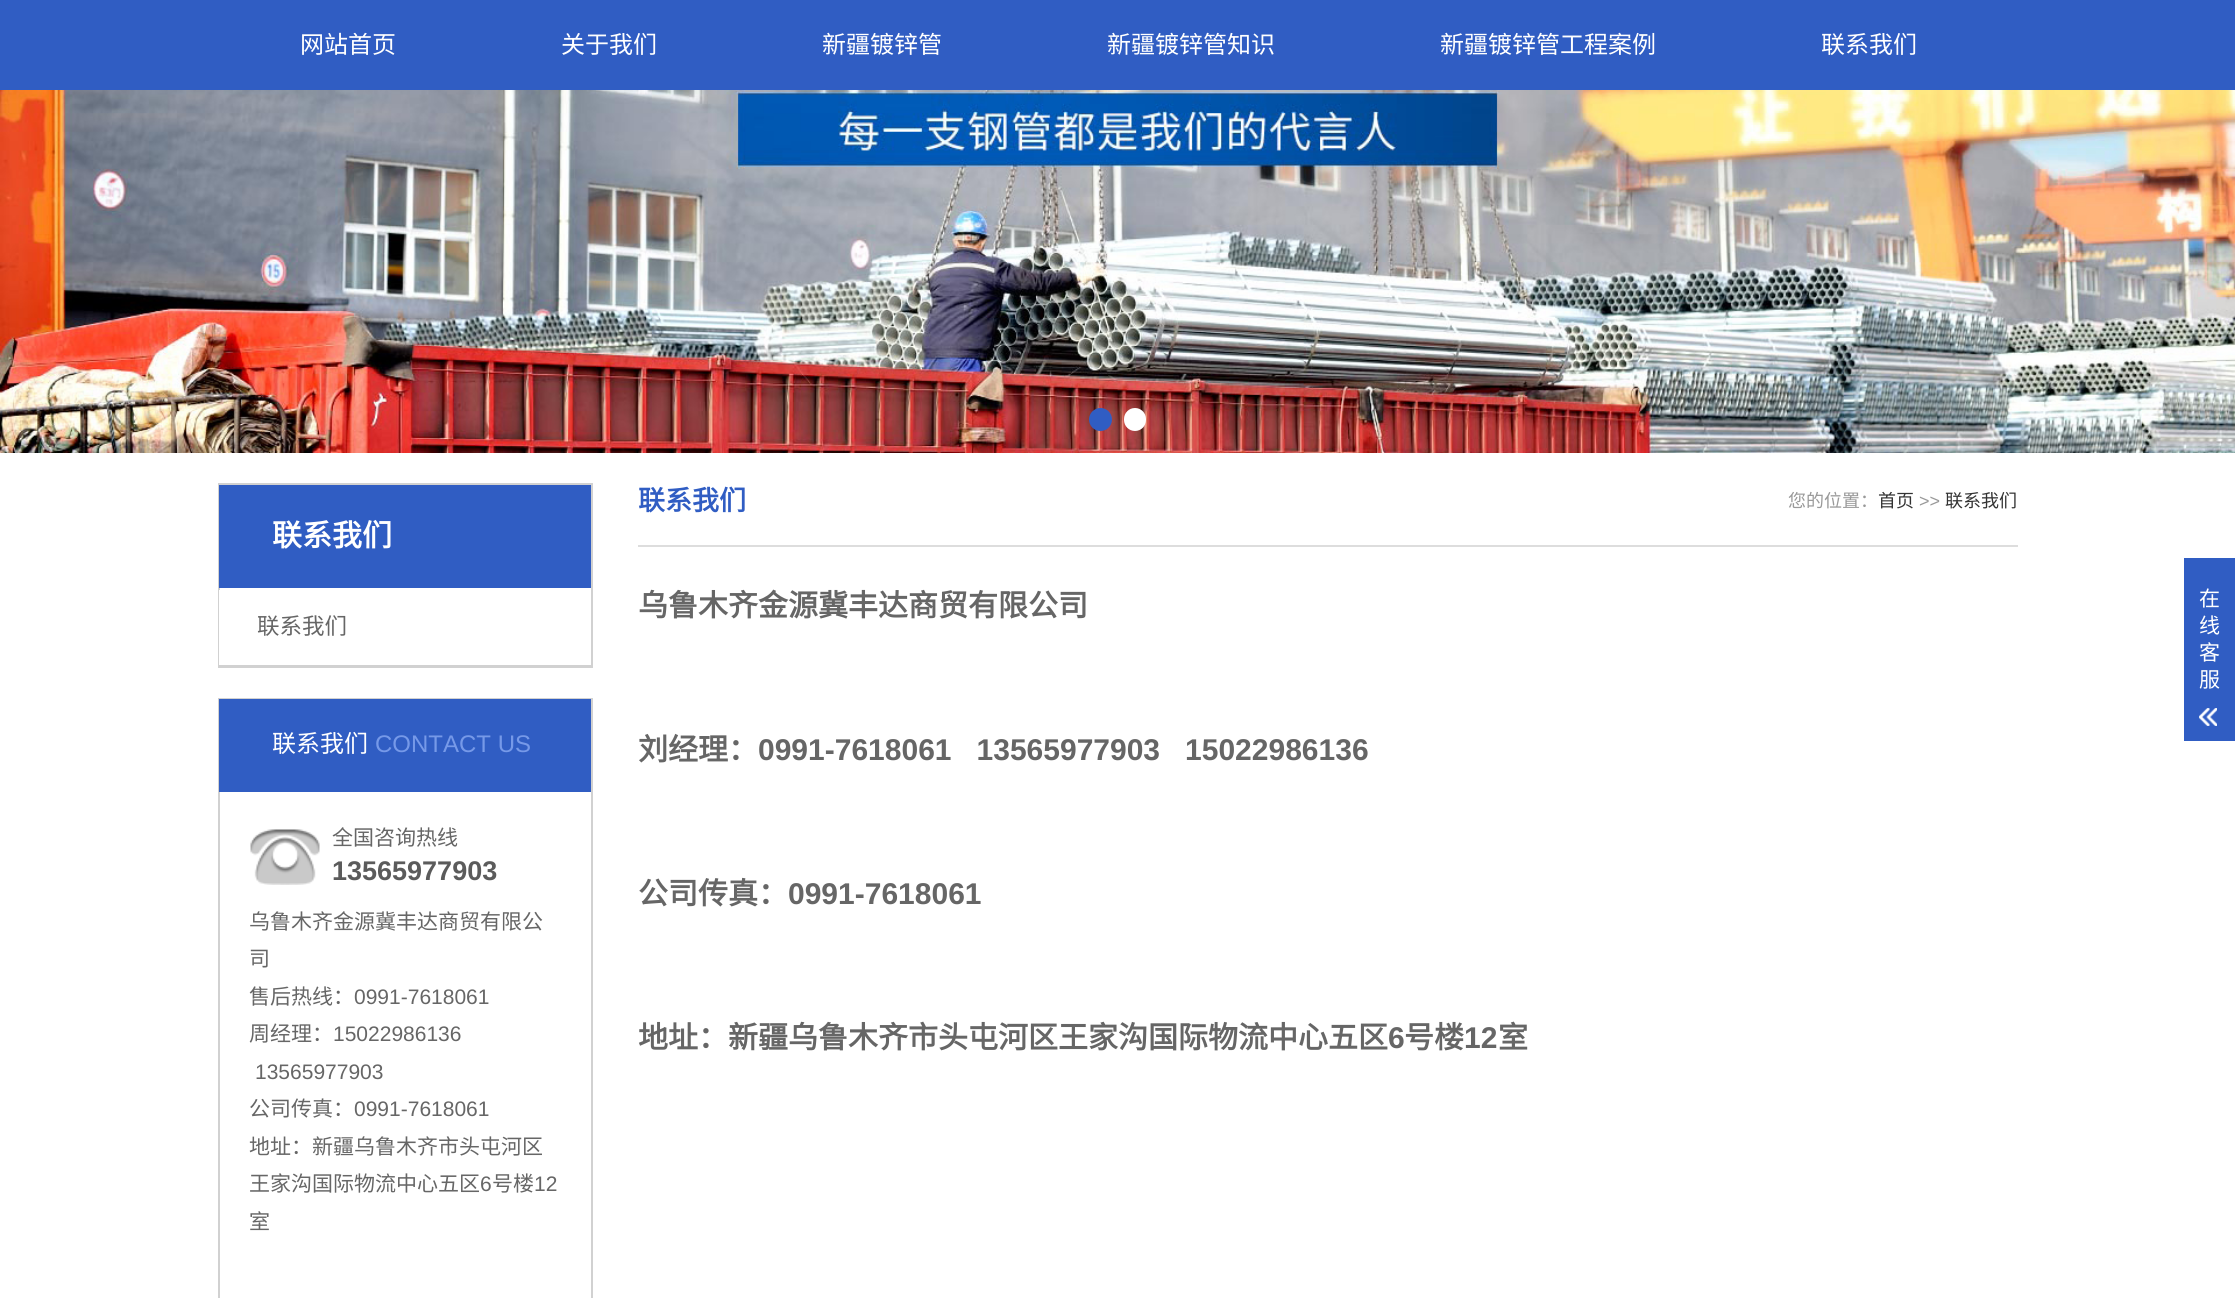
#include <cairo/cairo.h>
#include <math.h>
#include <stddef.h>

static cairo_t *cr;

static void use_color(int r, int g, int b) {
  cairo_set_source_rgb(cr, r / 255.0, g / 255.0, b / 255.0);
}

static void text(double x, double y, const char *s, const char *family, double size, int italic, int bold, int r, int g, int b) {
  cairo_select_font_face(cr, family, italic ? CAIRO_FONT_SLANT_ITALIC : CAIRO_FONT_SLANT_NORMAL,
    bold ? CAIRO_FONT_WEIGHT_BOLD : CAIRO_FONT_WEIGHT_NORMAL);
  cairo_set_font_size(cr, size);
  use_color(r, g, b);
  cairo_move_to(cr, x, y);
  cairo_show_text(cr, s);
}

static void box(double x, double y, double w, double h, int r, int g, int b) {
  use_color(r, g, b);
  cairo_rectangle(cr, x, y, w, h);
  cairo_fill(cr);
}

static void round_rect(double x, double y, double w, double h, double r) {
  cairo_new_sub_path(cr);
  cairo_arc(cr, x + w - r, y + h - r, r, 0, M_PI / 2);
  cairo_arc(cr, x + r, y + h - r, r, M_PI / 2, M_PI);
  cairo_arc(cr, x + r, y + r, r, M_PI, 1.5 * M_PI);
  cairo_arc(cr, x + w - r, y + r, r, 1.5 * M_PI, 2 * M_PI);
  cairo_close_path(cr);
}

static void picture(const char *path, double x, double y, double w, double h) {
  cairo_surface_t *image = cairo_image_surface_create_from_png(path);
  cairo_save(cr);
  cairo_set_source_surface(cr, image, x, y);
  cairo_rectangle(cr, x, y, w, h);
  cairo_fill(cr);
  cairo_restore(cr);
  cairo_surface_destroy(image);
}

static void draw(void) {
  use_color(255, 255, 255);
  cairo_paint(cr);
  box(0, 0, 2235, 90, 48, 93, 195);
  picture("img_01.png", 0, 90, 2235, 363);
  cairo_arc(cr, 1100.5, 419.5, 11.5, 0, 2 * M_PI);
  cairo_fill(cr);
  use_color(255, 255, 255);
  round_rect(1124, 408, 22, 23, 11);
  cairo_fill(cr);
  cairo_rectangle(cr, 219, 484, 373, 183);
  use_color(209, 209, 209);
  cairo_stroke(cr);
  box(219, 485, 372, 103, 48, 93, 195);
  box(219, 590, 1, 75, 255, 255, 255);
  box(219, 665, 372, 1, 209, 209, 209);
  cairo_rectangle(cr, 219, 699, 373, 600);
  cairo_stroke(cr);
  box(219, 699, 372, 93, 48, 93, 195);
  picture("img_02.png", 250, 829, 70, 56);
  box(638, 545, 1380, 2, 221, 221, 221);
  box(2184, 558, 51, 183, 48, 93, 195);
  picture("img_03.png", 2199, 708, 18, 18);
  text(300, 53, "网站首页", "Noto Sans CJK SC", 24, 0, 0, 255, 255, 255);
  text(561, 53, "关于我们", "Noto Sans CJK SC", 24, 0, 0, 255, 255, 255);
  text(822, 53, "新疆镀锌管", "Noto Sans CJK SC", 24, 0, 0, 255, 255, 255);
  text(1107, 53, "新疆镀锌管知识", "Noto Sans CJK SC", 24, 0, 0, 255, 255, 255);
  text(1440, 53, "新疆镀锌管工程案例", "Noto Sans CJK SC", 24, 0, 0, 255, 255, 255);
  text(1821, 53, "联系我们", "Noto Sans CJK SC", 24, 0, 0, 255, 255, 255);
  text(272, 546, "联系我们", "Noto Sans CJK SC", 30, 0, 1, 255, 255, 255);
  text(257, 634, "联系我们", "Noto Sans CJK SC", 22.5, 0, 0, 102, 102, 102);
  text(272, 752, "联系我们", "Noto Sans CJK SC", 24, 0, 0, 255, 255, 255);
  text(375, 752, "CONTACT US", "Liberation Sans", 24, 0, 0, 118, 153, 232);
  text(332, 845, "全国咨询热线", "Noto Sans CJK SC", 21, 0, 0, 102, 102, 102);
  text(332, 880, "13565977903", "Liberation Sans", 27, 0, 1, 91, 91, 91);
  text(249, 929, "乌鲁木齐金源冀丰达商贸有限公", "Noto Sans CJK SC", 21, 0, 0, 102, 102, 102);
  text(249, 966, "司", "Noto Sans CJK SC", 21, 0, 0, 102, 102, 102);
  text(249, 1004, "售后热线：", "Noto Sans CJK SC", 21, 0, 0, 102, 102, 102);
  text(354, 1004, "0991-7618061", "Liberation Sans", 21, 0, 0, 102, 102, 102);
  text(249, 1041, "周经理：", "Noto Sans CJK SC", 21, 0, 0, 102, 102, 102);
  text(333, 1041, "15022986136", "Liberation Sans", 21, 0, 0, 102, 102, 102);
  text(255, 1079, "13565977903", "Liberation Sans", 21, 0, 0, 102, 102, 102);
  text(249, 1116, "公司传真：", "Noto Sans CJK SC", 21, 0, 0, 102, 102, 102);
  text(354, 1116, "0991-7618061", "Liberation Sans", 21, 0, 0, 102, 102, 102);
  text(249, 1154, "地址：新疆乌鲁木齐市头屯河区", "Noto Sans CJK SC", 21, 0, 0, 102, 102, 102);
  text(249, 1191, "王家沟国际物流中心五区", "Noto Sans CJK SC", 21, 0, 0, 102, 102, 102);
  text(480, 1191, "6", "Liberation Sans", 21, 0, 0, 102, 102, 102);
  text(492, 1191, "号楼", "Noto Sans CJK SC", 21, 0, 0, 102, 102, 102);
  text(534, 1191, "12", "Liberation Sans", 21, 0, 0, 102, 102, 102);
  text(249, 1229, "室", "Noto Sans CJK SC", 21, 0, 0, 102, 102, 102);
  text(638, 510, "联系我们", "Noto Sans CJK SC", 27, 0, 1, 48, 93, 195);
  text(1788, 507, "您的位置：", "Noto Sans CJK SC", 18, 0, 0, 153, 153, 153);
  text(1878, 507, "首页", "Noto Sans CJK SC", 18, 0, 0, 51, 51, 51);
  text(1919, 507, ">>", "Liberation Sans", 18, 0, 0, 153, 153, 153);
  text(1945, 507, "联系我们", "Noto Sans CJK SC", 18, 0, 0, 51, 51, 51);
  text(638, 616, "乌鲁木齐金源冀丰达商贸有限公司", "Noto Sans CJK SC", 30, 0, 1, 102, 102, 102);
  text(638, 760, "刘经理：", "Noto Sans CJK SC", 30, 0, 1, 102, 102, 102);
  text(758, 760, "0991-7618061   13565977903   15022986136", "Liberation Sans", 30, 0, 1, 102, 102, 102);
  text(638, 904, "公司传真：", "Noto Sans CJK SC", 30, 0, 1, 102, 102, 102);
  text(788, 904, "0991-7618061", "Liberation Sans", 30, 0, 1, 102, 102, 102);
  text(638, 1048, "地址：新疆乌鲁木齐市头屯河区王家沟国际物流中心五区", "Noto Sans CJK SC", 30, 0, 1, 102, 102, 102);
  text(1388, 1048, "6", "Liberation Sans", 30, 0, 1, 102, 102, 102);
  text(1404, 1048, "号楼", "Noto Sans CJK SC", 30, 0, 1, 102, 102, 102);
  text(1464, 1048, "12", "Liberation Sans", 30, 0, 1, 102, 102, 102);
  text(1498, 1048, "室", "Noto Sans CJK SC", 30, 0, 1, 102, 102, 102);
  text(2199, 606, "在", "Noto Sans CJK SC", 21, 0, 0, 255, 255, 255);
  text(2199, 633, "线", "Noto Sans CJK SC", 21, 0, 0, 255, 255, 255);
  text(2199, 660, "客", "Noto Sans CJK SC", 21, 0, 0, 255, 255, 255);
  text(2199, 687, "服", "Noto Sans CJK SC", 21, 0, 0, 255, 255, 255);
}

int main(void) {
  cairo_surface_t *surface = cairo_image_surface_create(CAIRO_FORMAT_RGB24, 2235, 1298);
  cr = cairo_create(surface);
  cairo_font_options_t *options = cairo_font_options_create();
  cairo_font_options_set_hint_metrics(options, CAIRO_HINT_METRICS_OFF);
  cairo_font_options_set_hint_style(options, CAIRO_HINT_STYLE_NONE);
  cairo_set_font_options(cr, options);
  cairo_set_miter_limit(cr, 4);
  draw();
  cairo_surface_write_to_png(surface, "out.png");
  cairo_font_options_destroy(options);
  cairo_destroy(cr);
  cairo_surface_destroy(surface);
  return 0;
}
